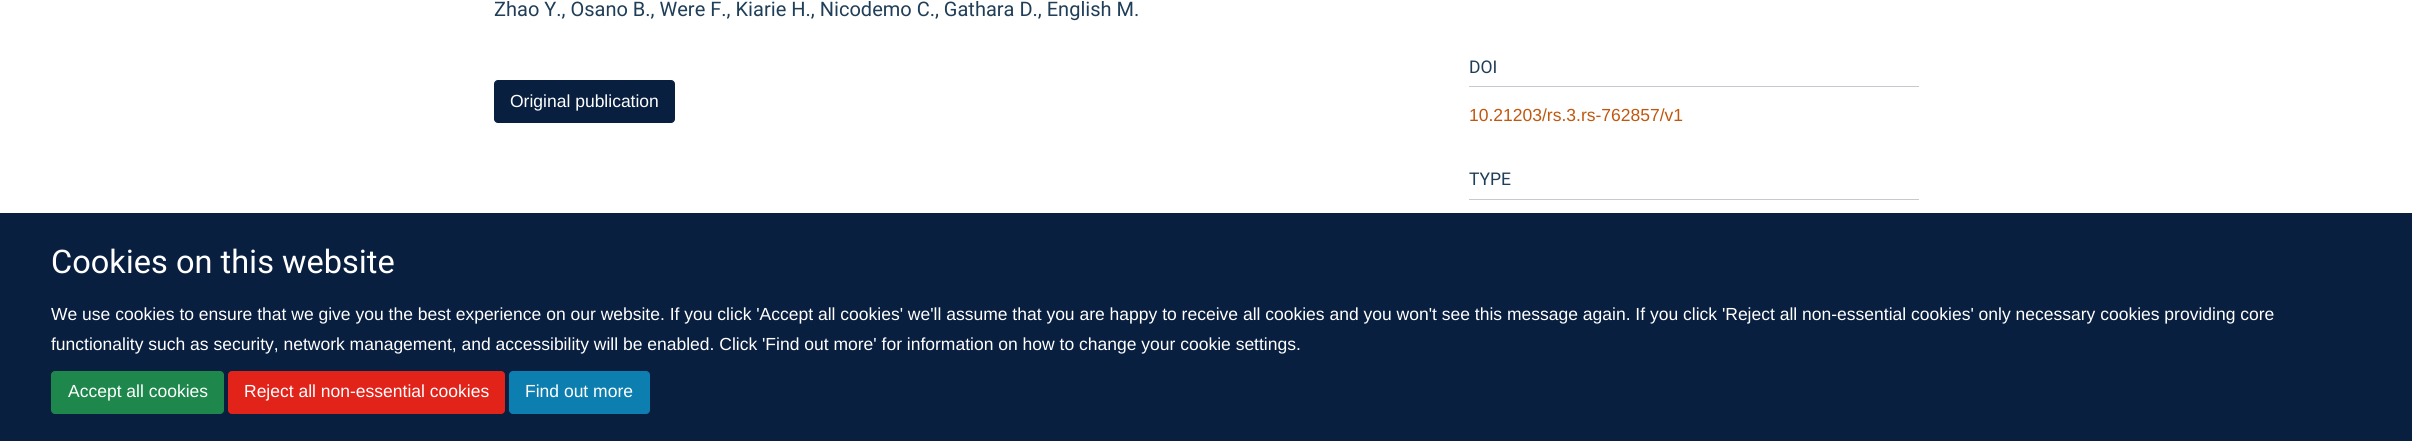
#include <cairo/cairo.h>
#include <math.h>
#include <stddef.h>

static cairo_t *cr;

static void use_color(int r, int g, int b) {
  cairo_set_source_rgb(cr, r / 255.0, g / 255.0, b / 255.0);
}

static void text(double x, double y, const char *s, const char *family, double size, int italic, int bold, int r, int g, int b) {
  cairo_select_font_face(cr, family, italic ? CAIRO_FONT_SLANT_ITALIC : CAIRO_FONT_SLANT_NORMAL,
    bold ? CAIRO_FONT_WEIGHT_BOLD : CAIRO_FONT_WEIGHT_NORMAL);
  cairo_set_font_size(cr, size);
  use_color(r, g, b);
  cairo_move_to(cr, x, y);
  cairo_show_text(cr, s);
}

static void box(double x, double y, double w, double h, int r, int g, int b) {
  use_color(r, g, b);
  cairo_rectangle(cr, x, y, w, h);
  cairo_fill(cr);
}

static void round_rect(double x, double y, double w, double h, double r) {
  cairo_new_sub_path(cr);
  cairo_arc(cr, x + w - r, y + h - r, r, 0, M_PI / 2);
  cairo_arc(cr, x + r, y + h - r, r, M_PI / 2, M_PI);
  cairo_arc(cr, x + r, y + r, r, M_PI, 1.5 * M_PI);
  cairo_arc(cr, x + w - r, y + r, r, 1.5 * M_PI, 2 * M_PI);
  cairo_close_path(cr);
}

static void draw(void) {
  use_color(255, 255, 255);
  cairo_paint(cr);
  use_color(9, 31, 64);
  round_rect(494.5, 80.5, 180, 42, 3.5);
  cairo_fill_preserve(cr);
  cairo_set_line_width(cr, 1);
  cairo_stroke(cr);
  box(1469, 86, 450, 1, 198, 202, 207);
  box(1469, 199, 450, 1, 198, 202, 207);
  box(0, 213, 2412, 228, 9, 31, 64);
  use_color(30, 135, 75);
  round_rect(51.5, 371.5, 172, 42, 3.5);
  cairo_fill_preserve(cr);
  cairo_stroke(cr);
  use_color(226, 35, 26);
  round_rect(228.5, 371.5, 276, 42, 3.5);
  cairo_fill_preserve(cr);
  cairo_stroke(cr);
  use_color(13, 126, 176);
  round_rect(509.5, 371.5, 140, 42, 3.5);
  cairo_fill_preserve(cr);
  cairo_stroke(cr);
  text(494, 16, "Zhao Y., Osano B., Were F., Kiarie H., Nicodemo C., Gathara D., English M.", "Heebo", 20, 0, 0, 32, 62, 88);
  text(510, 107, "Original publication", "Liberation Sans", 17.5, 0, 0, 255, 255, 255);
  text(1469, 73, "DOI", "Heebo", 17.5, 0, 0, 32, 62, 88);
  text(1469, 121, "10.21203/rs.3.rs-762857/v1", "Liberation Sans", 17.5, 0, 0, 193, 87, 14);
  text(1469, 185, "TYPE", "Heebo", 17.5, 0, 0, 32, 62, 88);
  text(51, 273, "Cookies on this website", "Heebo", 32.5, 0, 0, 255, 255, 255);
  text(51, 320, "We use cookies to ensure that we give you the best experience on our website. If you click 'Accept all cookies' we'll assume that you are happy to receive all cookies and you won't see this message again. If you click 'Reject all non-essential cookies' only necessary cookies providing core", "Liberation Sans", 17.5, 0, 0, 255, 255, 255);
  text(51, 350, "functionality such as security, network management, and accessibility will be enabled. Click 'Find out more' for information on how to change your cookie settings.", "Liberation Sans", 17.5, 0, 0, 255, 255, 255);
  text(68, 397, "Accept all cookies", "Liberation Sans", 17.5, 0, 0, 255, 255, 255);
  text(244, 397, "Reject all non-essential cookies", "Liberation Sans", 17.5, 0, 0, 255, 255, 255);
  text(525, 397, "Find out more", "Liberation Sans", 17.5, 0, 0, 255, 255, 255);
}

int main(void) {
  cairo_surface_t *surface = cairo_image_surface_create(CAIRO_FORMAT_RGB24, 2412, 441);
  cr = cairo_create(surface);
  cairo_font_options_t *options = cairo_font_options_create();
  cairo_font_options_set_hint_metrics(options, CAIRO_HINT_METRICS_OFF);
  cairo_font_options_set_hint_style(options, CAIRO_HINT_STYLE_NONE);
  cairo_set_font_options(cr, options);
  cairo_set_miter_limit(cr, 4);
  draw();
  cairo_surface_write_to_png(surface, "out.png");
  cairo_font_options_destroy(options);
  cairo_destroy(cr);
  cairo_surface_destroy(surface);
  return 0;
}
